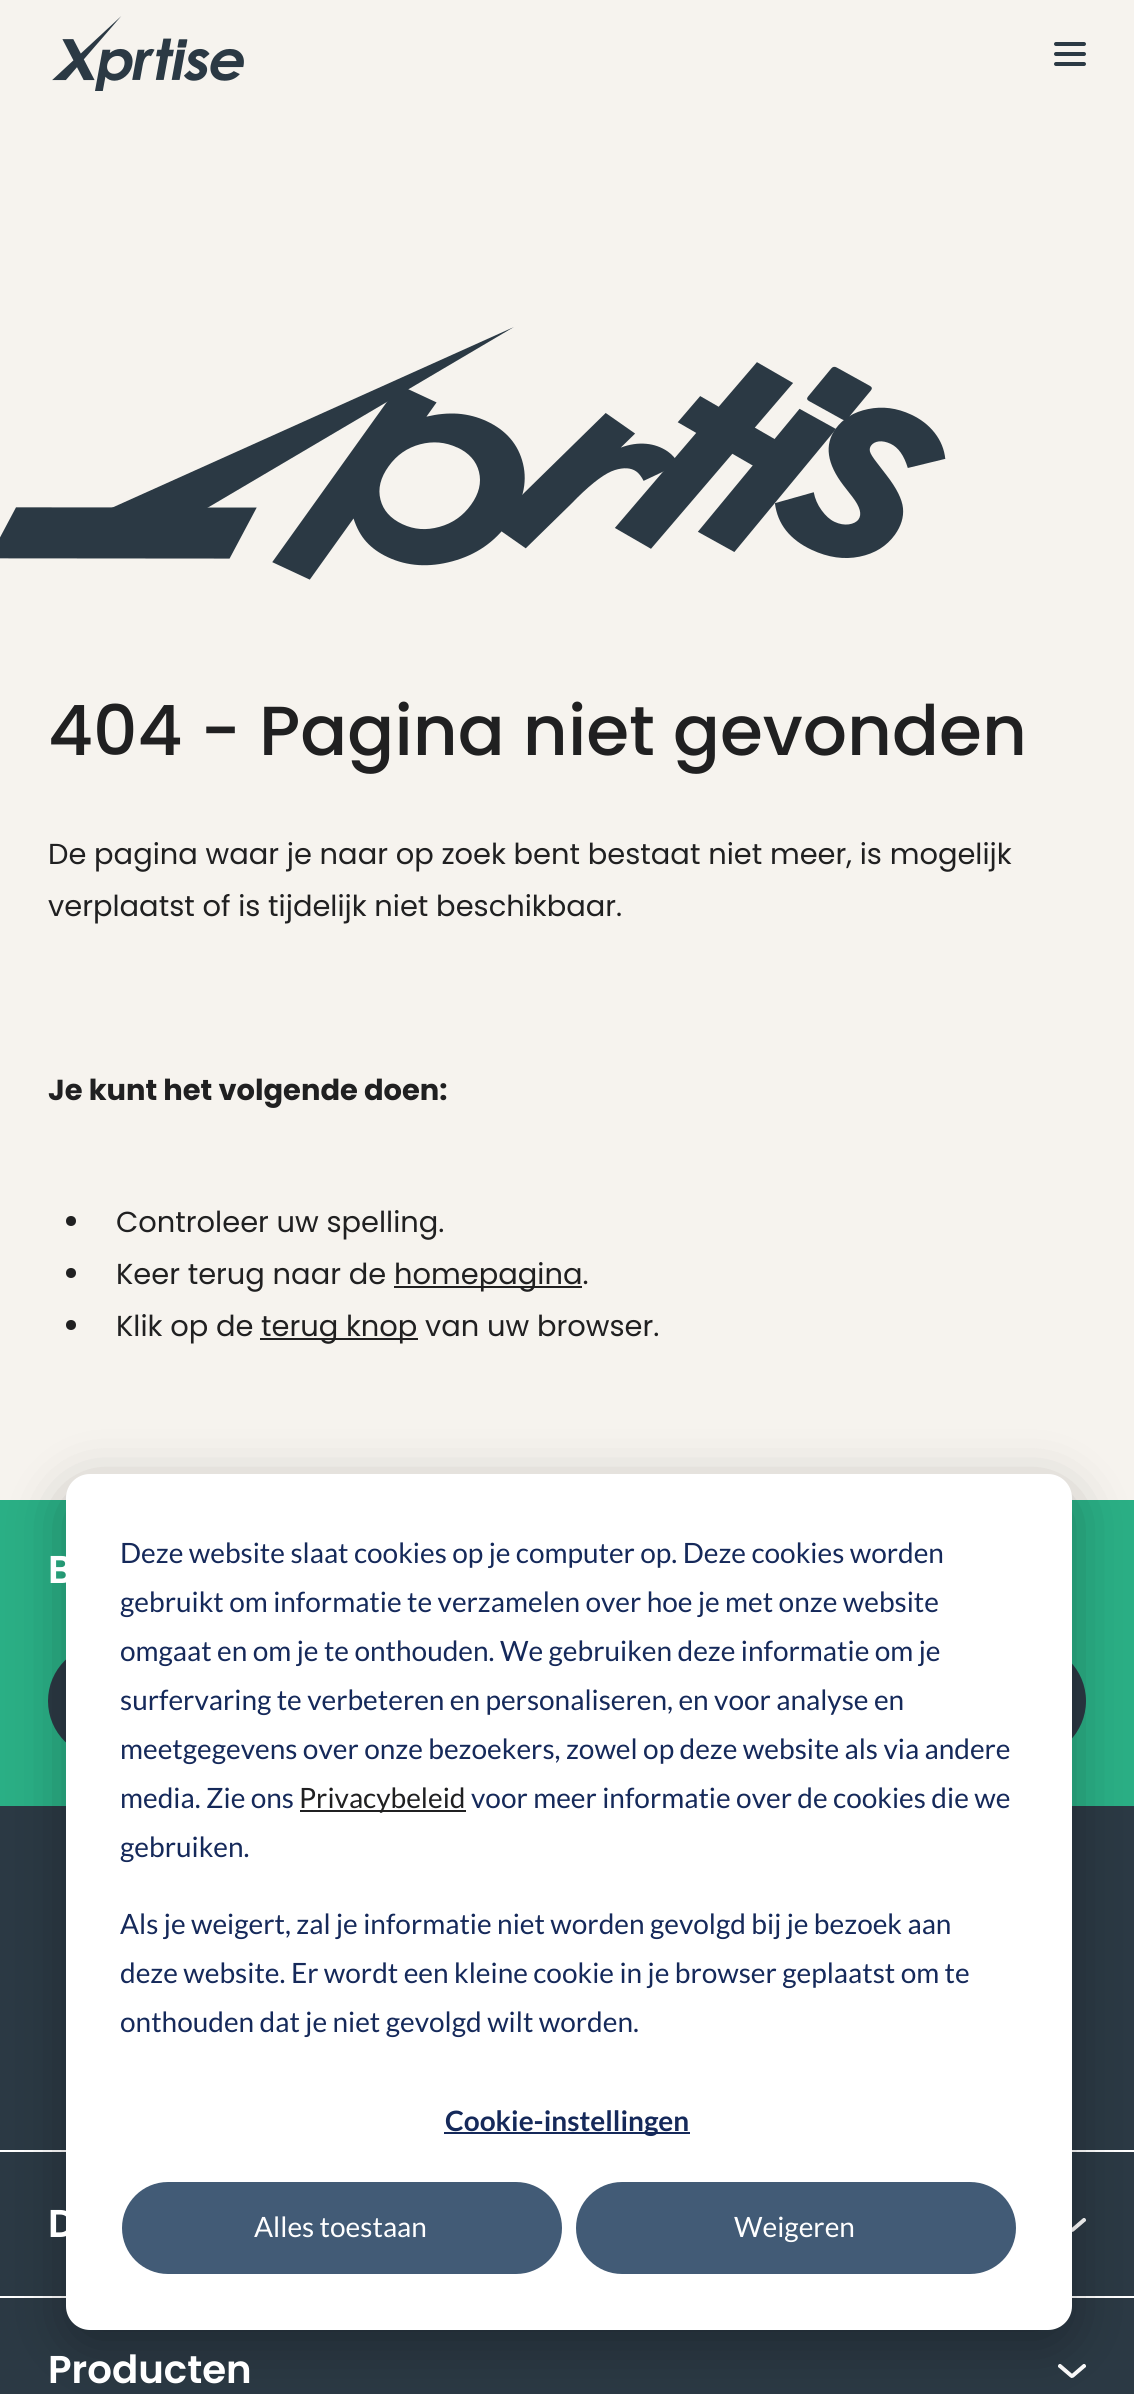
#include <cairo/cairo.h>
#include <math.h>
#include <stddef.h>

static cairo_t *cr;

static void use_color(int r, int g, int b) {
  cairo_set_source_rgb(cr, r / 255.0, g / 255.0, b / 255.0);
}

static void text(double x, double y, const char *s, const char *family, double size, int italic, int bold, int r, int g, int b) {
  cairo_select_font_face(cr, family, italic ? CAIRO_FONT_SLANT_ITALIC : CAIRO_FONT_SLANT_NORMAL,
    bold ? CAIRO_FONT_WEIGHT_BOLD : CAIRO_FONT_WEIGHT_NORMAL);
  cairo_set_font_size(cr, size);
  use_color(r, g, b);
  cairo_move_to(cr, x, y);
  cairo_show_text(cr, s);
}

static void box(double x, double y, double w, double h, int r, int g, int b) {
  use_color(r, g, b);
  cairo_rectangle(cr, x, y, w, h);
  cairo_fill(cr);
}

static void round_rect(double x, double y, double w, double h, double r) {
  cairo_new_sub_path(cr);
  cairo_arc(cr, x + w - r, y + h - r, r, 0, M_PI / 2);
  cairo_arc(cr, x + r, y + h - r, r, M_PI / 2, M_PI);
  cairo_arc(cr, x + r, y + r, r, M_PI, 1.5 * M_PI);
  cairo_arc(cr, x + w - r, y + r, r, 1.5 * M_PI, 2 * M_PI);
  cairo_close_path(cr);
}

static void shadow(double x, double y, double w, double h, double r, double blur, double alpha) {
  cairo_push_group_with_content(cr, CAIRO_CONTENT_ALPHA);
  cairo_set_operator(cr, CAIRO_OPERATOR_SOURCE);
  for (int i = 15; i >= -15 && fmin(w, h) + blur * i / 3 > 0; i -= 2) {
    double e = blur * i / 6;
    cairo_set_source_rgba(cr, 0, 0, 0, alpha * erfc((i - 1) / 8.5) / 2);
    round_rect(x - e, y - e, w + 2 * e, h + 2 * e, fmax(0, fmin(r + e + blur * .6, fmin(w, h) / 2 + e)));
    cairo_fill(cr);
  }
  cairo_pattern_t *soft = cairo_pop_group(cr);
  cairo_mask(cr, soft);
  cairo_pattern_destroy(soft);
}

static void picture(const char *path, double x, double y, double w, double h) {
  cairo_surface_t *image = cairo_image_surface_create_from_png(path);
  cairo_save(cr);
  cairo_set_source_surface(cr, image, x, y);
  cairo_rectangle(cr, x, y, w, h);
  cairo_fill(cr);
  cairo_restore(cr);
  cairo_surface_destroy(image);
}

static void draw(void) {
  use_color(246, 243, 238);
  cairo_paint(cr);
  picture("img_01.png", 52, 16, 192, 75);
  use_color(43, 57, 68);
  round_rect(1054, 42, 32, 4, 2);
  cairo_fill(cr);
  round_rect(1054, 52, 32, 4, 2);
  cairo_fill(cr);
  round_rect(1054, 62, 32, 4, 2);
  cairo_fill(cr);
  picture("img_02.png", 0, 327, 946, 253);
  use_color(32, 32, 33);
  cairo_arc(cr, 71, 1221, 5, 0, 2 * M_PI);
  cairo_fill(cr);
  cairo_arc(cr, 71, 1273, 5, 0, 2 * M_PI);
  cairo_fill(cr);
  box(394, 1286, 188, 2, 32, 32, 33);
  cairo_arc(cr, 71, 1325, 5, 0, 2 * M_PI);
  cairo_fill(cr);
  box(260, 1338, 158, 2, 32, 32, 33);
  box(0, 1500, 1134, 306, 42, 175, 133);
  use_color(43, 57, 68);
  round_rect(48, 1644, 1038, 114, 57);
  cairo_fill(cr);
  box(0, 1806, 1134, 588, 43, 57, 68);
  box(0, 2150, 1134, 2, 255, 255, 255);
  picture("img_03.png", 1072, 2218, 14, 14);
  box(0, 2296, 1134, 2, 255, 255, 255);
  picture("img_04.png", 1058, 2364, 28, 14);
  use_color(0, 0, 0);
  shadow(66, 1490, 1006, 856, 24, 28, 0.28);
  use_color(255, 255, 255);
  round_rect(66, 1474, 1006, 856, 24);
  cairo_fill(cr);
  box(300, 1810, 166, 2, 32, 32, 33);
  box(444, 2132, 246, 2, 21, 41, 90);
  use_color(66, 91, 118);
  round_rect(123, 2183, 438, 90, 45);
  cairo_fill_preserve(cr);
  cairo_stroke(cr);
  round_rect(577, 2183, 438, 90, 45);
  cairo_fill_preserve(cr);
  cairo_stroke(cr);
  text(48, 755, "404 - Pagina niet gevonden", "Poppins Medium", 69.4, 0, 0, 32, 32, 33);
  text(48, 864, "De pagina waar je naar op zoek bent bestaat niet meer, is mogelijk", "Poppins", 28.9, 0, 0, 32, 32, 33);
  text(48, 916, "verplaatst of is tijdelijk niet beschikbaar.", "Poppins", 28.9, 0, 0, 32, 32, 33);
  text(48, 1100, "Je kunt het volgende doen:", "Poppins", 28.9, 0, 1, 32, 32, 33);
  text(116, 1232, "Controleer uw spelling.", "Poppins", 28.9, 0, 0, 32, 32, 33);
  text(116, 1284, "Keer terug naar de", "Poppins", 28.9, 0, 0, 32, 32, 33);
  text(394, 1284, "homepagina.", "Poppins", 28.9, 0, 0, 32, 32, 33);
  text(116, 1336, "Klik op de", "Poppins", 28.9, 0, 0, 32, 32, 33);
  text(261, 1336, "terug knop van uw browser.", "Poppins", 28.9, 0, 0, 32, 32, 33);
  text(48, 1583, "B", "Poppins SemiBold", 38.75, 0, 0, 255, 255, 255);
  text(48, 2237, "D", "Poppins SemiBold", 38.75, 0, 0, 255, 255, 255);
  text(48, 2383, "Producten", "Poppins SemiBold", 38.75, 0, 0, 255, 255, 255);
  text(120, 1563, "Deze website slaat cookies op je computer op. Deze cookies worden", "Lato", 28, 0, 0, 21, 41, 90);
  text(120, 1612, "gebruikt om informatie te verzamelen over hoe je met onze website", "Lato", 28, 0, 0, 21, 41, 90);
  text(120, 1661, "omgaat en om je te onthouden. We gebruiken deze informatie om je", "Lato", 28, 0, 0, 21, 41, 90);
  text(120, 1710, "surfervaring te verbeteren en personaliseren, en voor analyse en", "Lato", 28, 0, 0, 21, 41, 90);
  text(120, 1759, "meetgegevens over onze bezoekers, zowel op deze website als via andere", "Lato", 28, 0, 0, 21, 41, 90);
  text(120, 1808, "media. Zie ons", "Lato", 28, 0, 0, 21, 41, 90);
  text(299, 1808, "Privacybeleid", "Lato", 28, 0, 0, 32, 32, 33);
  text(471, 1808, "voor meer informatie over de cookies die we", "Lato", 28, 0, 0, 21, 41, 90);
  text(120, 1857, "gebruiken.", "Lato", 28, 0, 0, 21, 41, 90);
  text(120, 1934, "Als je weigert, zal je informatie niet worden gevolgd bij je bezoek aan", "Lato", 28, 0, 0, 21, 41, 90);
  text(120, 1983, "deze website. Er wordt een kleine cookie in je browser geplaatst om te", "Lato", 28, 0, 0, 21, 41, 90);
  text(120, 2032, "onthouden dat je niet gevolgd wilt worden.", "Lato", 28, 0, 0, 21, 41, 90);
  text(445, 2131, "Cookie-instellingen", "Lato", 28, 0, 1, 21, 41, 90);
  text(254, 2237, "Alles toestaan", "Lato", 28, 0, 0, 255, 255, 255);
  text(734, 2237, "Weigeren", "Lato", 28, 0, 0, 255, 255, 255);
}

int main(void) {
  cairo_surface_t *surface = cairo_image_surface_create(CAIRO_FORMAT_RGB24, 1134, 2394);
  cr = cairo_create(surface);
  cairo_font_options_t *options = cairo_font_options_create();
  cairo_font_options_set_hint_metrics(options, CAIRO_HINT_METRICS_OFF);
  cairo_font_options_set_hint_style(options, CAIRO_HINT_STYLE_NONE);
  cairo_set_font_options(cr, options);
  cairo_set_miter_limit(cr, 4);
  draw();
  cairo_surface_write_to_png(surface, "out.png");
  cairo_font_options_destroy(options);
  cairo_destroy(cr);
  cairo_surface_destroy(surface);
  return 0;
}
